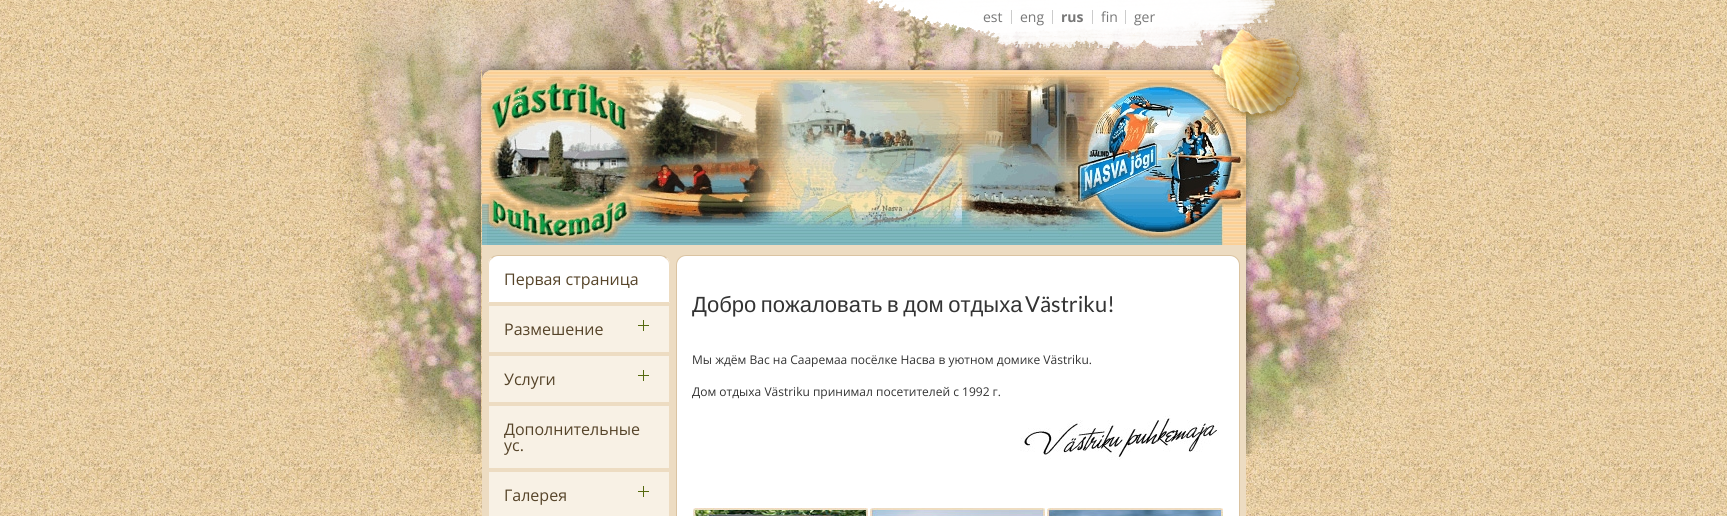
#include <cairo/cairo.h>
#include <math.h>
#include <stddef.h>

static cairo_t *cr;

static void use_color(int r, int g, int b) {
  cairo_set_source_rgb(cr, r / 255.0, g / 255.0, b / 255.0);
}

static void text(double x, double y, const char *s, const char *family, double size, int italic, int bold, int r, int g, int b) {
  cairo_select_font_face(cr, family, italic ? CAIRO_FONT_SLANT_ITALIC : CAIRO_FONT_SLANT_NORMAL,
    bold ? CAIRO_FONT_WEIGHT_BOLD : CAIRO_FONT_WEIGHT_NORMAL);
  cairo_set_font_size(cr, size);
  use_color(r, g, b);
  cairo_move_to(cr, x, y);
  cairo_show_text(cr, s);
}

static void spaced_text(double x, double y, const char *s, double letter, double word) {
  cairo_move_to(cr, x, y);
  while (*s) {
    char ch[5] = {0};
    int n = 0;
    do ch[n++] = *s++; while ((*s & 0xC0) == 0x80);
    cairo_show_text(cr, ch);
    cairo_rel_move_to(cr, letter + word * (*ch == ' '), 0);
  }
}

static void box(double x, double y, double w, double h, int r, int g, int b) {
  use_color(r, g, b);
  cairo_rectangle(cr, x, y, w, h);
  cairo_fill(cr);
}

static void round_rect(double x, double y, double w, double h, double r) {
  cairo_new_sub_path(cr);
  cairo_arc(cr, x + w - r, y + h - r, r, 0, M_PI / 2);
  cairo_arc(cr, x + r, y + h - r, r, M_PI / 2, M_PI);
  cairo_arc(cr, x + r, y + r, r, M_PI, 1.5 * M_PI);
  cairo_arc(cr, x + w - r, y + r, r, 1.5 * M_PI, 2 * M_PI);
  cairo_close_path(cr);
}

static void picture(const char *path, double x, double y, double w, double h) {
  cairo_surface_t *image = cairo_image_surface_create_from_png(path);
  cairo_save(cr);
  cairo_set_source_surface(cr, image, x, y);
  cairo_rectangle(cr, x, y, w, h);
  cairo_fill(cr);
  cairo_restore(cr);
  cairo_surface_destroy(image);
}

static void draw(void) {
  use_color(255, 255, 255);
  cairo_paint(cr);
  picture("img_01.png", 0, 0, 1727, 516);
  picture("img_02.png", 338, 0, 1053, 459);
  picture("img_03.png", 864, 0, 412, 49);
  box(1011, 10, 1, 14, 204, 204, 204);
  box(1052, 10, 1, 14, 204, 204, 204);
  box(1092, 10, 1, 14, 204, 204, 204);
  box(1125, 10, 1, 14, 204, 204, 204);
  picture("img_05.png", 482, 70, 764, 175);
  picture("img_04.png", 1208, 26, 99, 95);
  box(482, 245, 764, 271, 237, 220, 194);
  use_color(255, 255, 255);
  cairo_new_path(cr);
  cairo_move_to(cr, 498, 255);
  cairo_line_to(cr, 660, 255);
  cairo_curve_to(cr, 665.5, 255, 670, 259.5, 670, 265);
  cairo_line_to(cr, 670, 303);
  cairo_line_to(cr, 488, 303);
  cairo_line_to(cr, 488, 265);
  cairo_curve_to(cr, 488, 259.5, 492.5, 255, 498, 255);
  cairo_close_path(cr);
  cairo_fill(cr);
  use_color(218, 195, 161);
  cairo_new_path(cr);
  cairo_move_to(cr, 498, 255);
  cairo_curve_to(cr, 495, 255, 492, 256, 491, 258);
  cairo_line_to(cr, 492, 259);
  cairo_curve_to(cr, 493, 257, 496, 256, 498, 256);
  cairo_line_to(cr, 660, 256);
  cairo_curve_to(cr, 662, 256, 665, 257, 666, 259);
  cairo_line_to(cr, 667, 258);
  cairo_curve_to(cr, 666, 256, 663, 255, 660, 255);
  cairo_close_path(cr);
  cairo_fill(cr);
  use_color(237, 220, 194);
  cairo_new_path(cr);
  cairo_move_to(cr, 670, 303);
  cairo_line_to(cr, 670, 265);
  cairo_curve_to(cr, 670, 262, 669, 260, 667, 258);
  cairo_line_to(cr, 666, 259);
  cairo_curve_to(cr, 668, 260, 669, 262, 669, 265);
  cairo_line_to(cr, 669, 302);
  cairo_close_path(cr);
  cairo_fill(cr);
  cairo_new_path(cr);
  cairo_move_to(cr, 670, 303);
  cairo_line_to(cr, 669, 302);
  cairo_line_to(cr, 489, 302);
  cairo_line_to(cr, 488, 303);
  cairo_close_path(cr);
  cairo_fill(cr);
  cairo_new_path(cr);
  cairo_move_to(cr, 488, 303);
  cairo_line_to(cr, 489, 302);
  cairo_line_to(cr, 489, 265);
  cairo_curve_to(cr, 489, 262, 490, 260, 492, 259);
  cairo_line_to(cr, 491, 258);
  cairo_curve_to(cr, 489, 260, 488, 262, 488, 265);
  cairo_close_path(cr);
  cairo_fill(cr);
  box(489, 306, 180, 46, 248, 241, 229);
  box(638, 325, 11, 1, 85, 105, 13);
  box(643, 320, 1, 11, 85, 105, 13);
  box(489, 356, 180, 46, 248, 241, 229);
  box(638, 375, 11, 1, 85, 105, 13);
  box(643, 370, 1, 11, 85, 105, 13);
  box(489, 406, 180, 62, 248, 241, 229);
  box(489, 472, 180, 44, 248, 241, 229);
  box(638, 491, 11, 1, 85, 105, 13);
  box(643, 486, 1, 11, 85, 105, 13);
  use_color(255, 255, 255);
  round_rect(676.5, 255.5, 563, 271, 9.5);
  cairo_fill_preserve(cr);
  use_color(218, 195, 161);
  cairo_set_line_width(cr, 1);
  cairo_stroke(cr);
  picture("img_06.png", 1020, 415, 199, 45);
  picture("img_07.png", 693, 508, 175, 8);
  picture("img_08.png", 870, 508, 175, 8);
  picture("img_09.png", 1047, 508, 176, 8);
  text(983, 22, "est", "Open Sans", 14, 0, 0, 119, 119, 119);
  text(1020, 22, "eng", "Open Sans", 14, 0, 0, 119, 119, 119);
  text(1061, 22, "rus", "Open Sans", 14, 0, 1, 119, 119, 119);
  text(1101, 22, "fin", "Open Sans", 14, 0, 0, 119, 119, 119);
  text(1134, 22, "ger", "Open Sans", 14, 0, 0, 119, 119, 119);
  text(504, 285, "Первая страница", "Open Sans", 16, 0, 0, 86, 68, 41);
  text(504, 335, "Размешение", "Open Sans", 16, 0, 0, 86, 68, 41);
  text(504, 385, "Услуги", "Open Sans", 16, 0, 0, 86, 68, 41);
  text(504, 435, "Дополнительные", "Open Sans", 16, 0, 0, 86, 68, 41);
  text(504, 451, "ус.", "Open Sans", 16, 0, 0, 86, 68, 41);
  text(504, 501, "Галерея", "Open Sans", 16, 0, 0, 86, 68, 41);
  cairo_select_font_face(cr, "Liberation Sans", CAIRO_FONT_SLANT_NORMAL, CAIRO_FONT_WEIGHT_NORMAL);
  cairo_set_font_size(cr, 22);
  use_color(51, 51, 51);
  spaced_text(692, 312, "Добро пожаловать в дом отдыха", 0, -1.5);
  text(1025, 312, "Västriku!", "Lato", 22, 0, 0, 51, 51, 51);
  text(692, 364, "Мы ждём Вас на Сааремаа посёлке Насва в уютном домике Västriku.", "Open Sans", 12, 0, 0, 51, 51, 51);
  text(692, 396, "Дом отдыха Västriku принимал посетителей с 1992 г.", "Open Sans", 12, 0, 0, 51, 51, 51);
}

int main(void) {
  cairo_surface_t *surface = cairo_image_surface_create(CAIRO_FORMAT_RGB24, 1727, 516);
  cr = cairo_create(surface);
  cairo_font_options_t *options = cairo_font_options_create();
  cairo_font_options_set_hint_metrics(options, CAIRO_HINT_METRICS_OFF);
  cairo_font_options_set_hint_style(options, CAIRO_HINT_STYLE_NONE);
  cairo_set_font_options(cr, options);
  cairo_set_miter_limit(cr, 4);
  draw();
  cairo_surface_write_to_png(surface, "out.png");
  cairo_font_options_destroy(options);
  cairo_destroy(cr);
  cairo_surface_destroy(surface);
  return 0;
}
